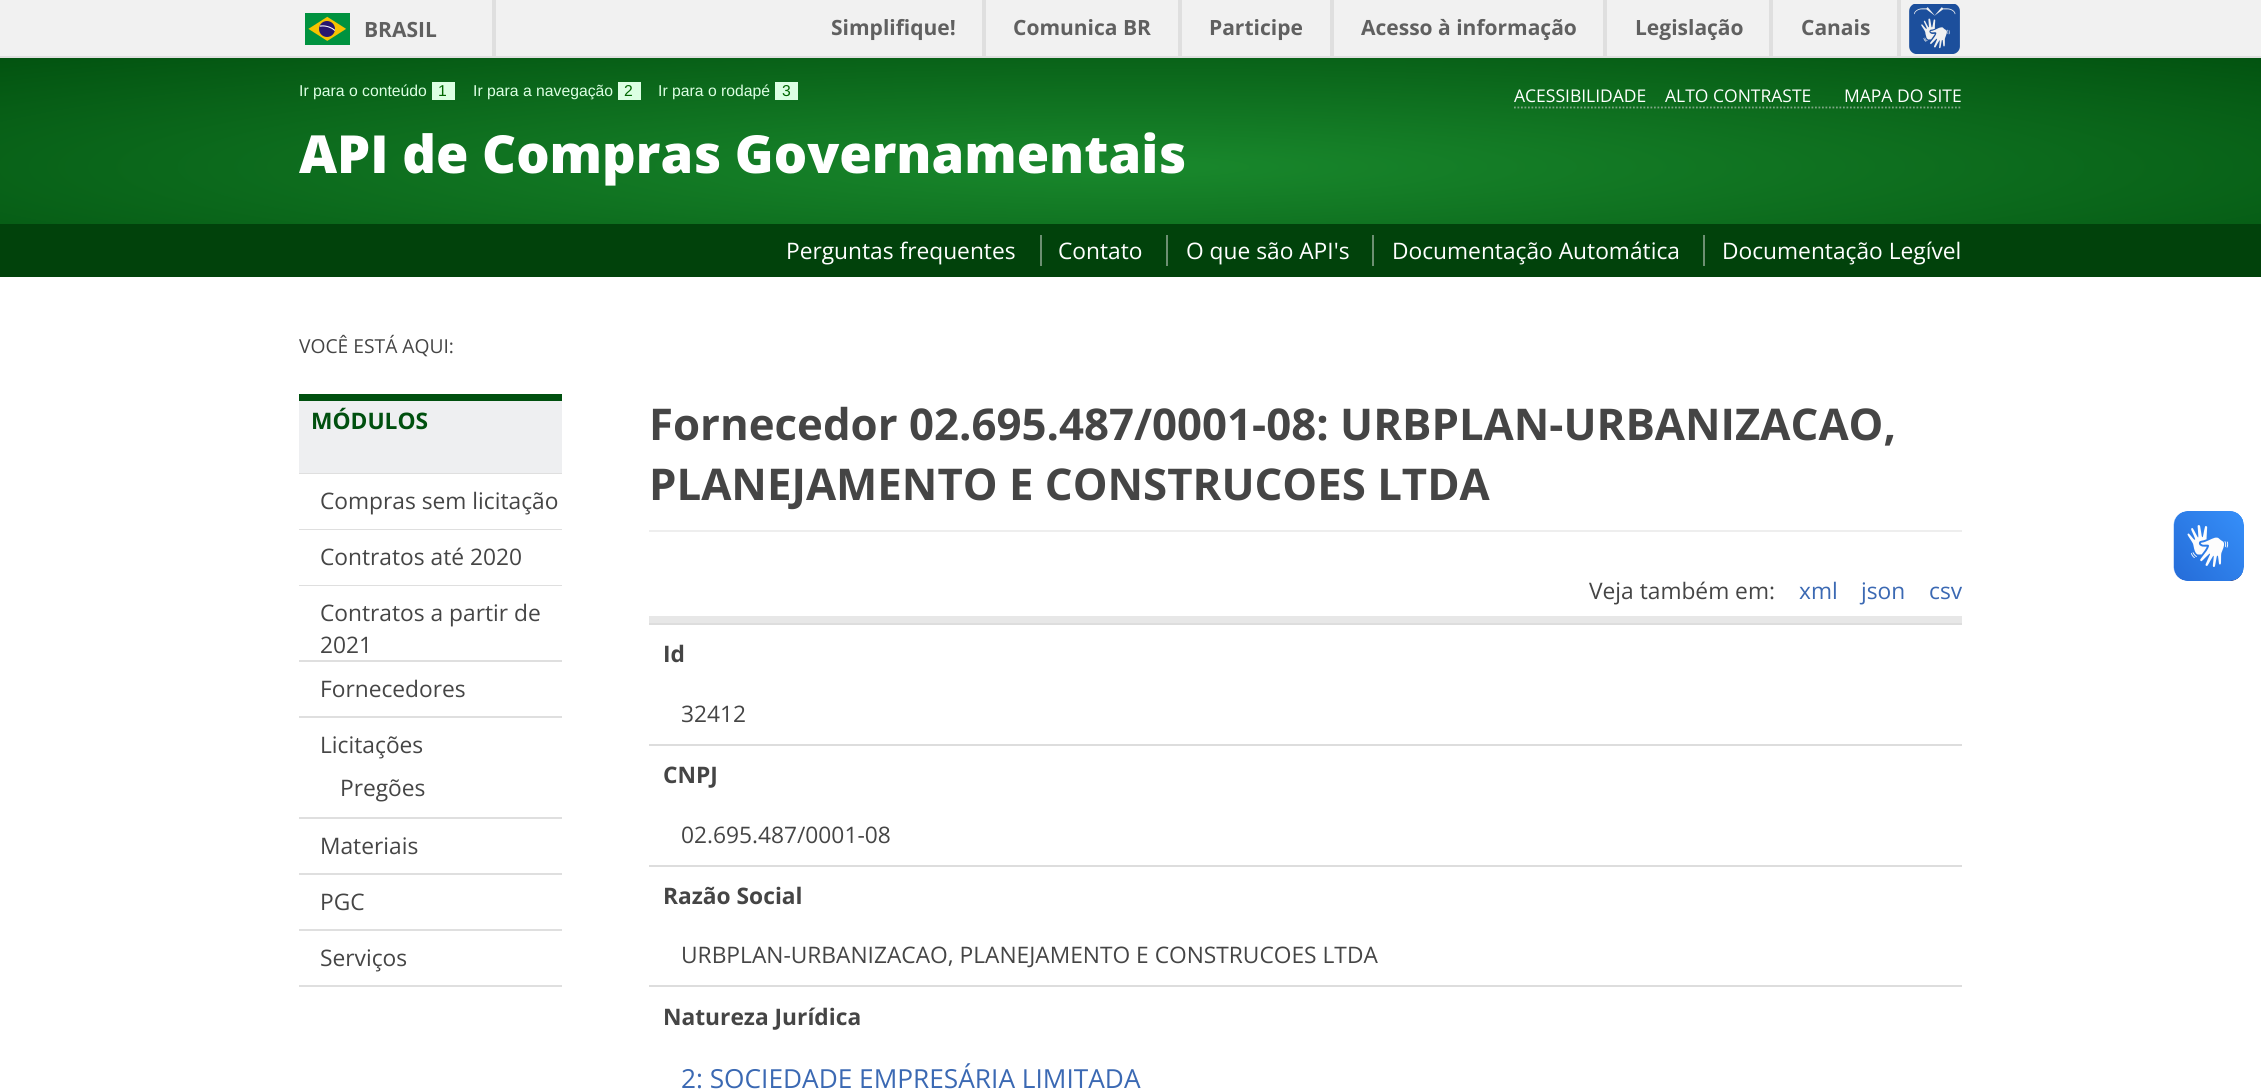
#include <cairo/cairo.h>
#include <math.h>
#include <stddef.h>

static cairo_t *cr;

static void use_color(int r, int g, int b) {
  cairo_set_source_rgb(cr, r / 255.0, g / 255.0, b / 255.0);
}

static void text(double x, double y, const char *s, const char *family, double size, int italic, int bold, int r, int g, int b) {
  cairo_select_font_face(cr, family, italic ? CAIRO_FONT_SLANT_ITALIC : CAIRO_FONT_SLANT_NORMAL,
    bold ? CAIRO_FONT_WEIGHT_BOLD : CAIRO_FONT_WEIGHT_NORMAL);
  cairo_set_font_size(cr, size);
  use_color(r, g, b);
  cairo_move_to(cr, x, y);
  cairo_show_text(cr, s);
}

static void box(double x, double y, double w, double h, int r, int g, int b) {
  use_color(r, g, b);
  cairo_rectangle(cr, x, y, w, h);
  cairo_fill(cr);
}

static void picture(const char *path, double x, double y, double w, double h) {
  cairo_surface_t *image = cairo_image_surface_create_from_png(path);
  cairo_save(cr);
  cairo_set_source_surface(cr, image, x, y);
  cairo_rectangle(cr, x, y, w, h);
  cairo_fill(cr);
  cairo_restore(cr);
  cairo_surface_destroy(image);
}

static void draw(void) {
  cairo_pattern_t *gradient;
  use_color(255, 255, 255);
  cairo_paint(cr);
  box(0, 0, 2261, 56, 241, 241, 241);
  box(0, 56, 2261, 2, 223, 223, 223);
  box(492, 0, 4, 56, 223, 223, 223);
  picture("img_01.png", 305, 13, 45, 32);
  box(982, 0, 4, 56, 223, 223, 223);
  box(1178, 0, 4, 56, 223, 223, 223);
  box(1330, 0, 4, 56, 223, 223, 223);
  box(1603, 0, 4, 56, 223, 223, 223);
  box(1769, 0, 4, 56, 223, 223, 223);
  box(1897, 0, 4, 56, 223, 223, 223);
  picture("img_02.png", 1909, 4, 51, 50);
  gradient = cairo_pattern_create_radial(0, 0, 0, 0, 0, 1);
  cairo_pattern_set_matrix(gradient, &(cairo_matrix_t){1.0 / 1599, 0, 0, 1.0 / 155, -1.0 * 1131 / 1599, -1.0 * 167 / 155});
  cairo_pattern_add_color_stop_rgba(gradient, 0.01, 0.098, 0.533, 0.173, 1);
  cairo_pattern_add_color_stop_rgba(gradient, 1, 0.008, 0.325, 0.063, 1);
  cairo_set_source(cr, gradient);
  cairo_pattern_destroy(gradient);
  cairo_rectangle(cr, 0, 58, 2261, 166);
  cairo_fill(cr);
  box(432, 82, 23, 18, 220, 255, 227);
  box(618, 82, 23, 18, 220, 255, 227);
  box(775, 82, 23, 18, 220, 255, 227);
  cairo_new_path(cr);
  cairo_move_to(cr, 1514, 107.5);
  cairo_line_to(cr, 1962, 107.5);
  use_color(128, 168, 135);
  cairo_set_line_width(cr, 1.8);
  cairo_set_dash(cr, (double[]){1.75, 1.75}, 2, 0);
  cairo_stroke(cr);
  box(0, 224, 2261, 53, 1, 66, 11);
  box(1040, 235, 2, 31, 108, 144, 114);
  box(1166, 235, 2, 31, 108, 144, 114);
  box(1372, 235, 2, 31, 108, 144, 114);
  box(1703, 235, 2, 31, 108, 144, 114);
  box(299, 401, 263, 72, 238, 239, 241);
  box(299, 394, 263, 7, 0, 80, 15);
  box(299, 473, 263, 1, 223, 223, 223);
  box(299, 529, 263, 1, 223, 223, 223);
  box(299, 585, 263, 1, 223, 223, 223);
  box(299, 660, 263, 2, 223, 223, 223);
  box(299, 716, 263, 2, 223, 223, 223);
  box(299, 817, 263, 2, 223, 223, 223);
  box(299, 873, 263, 2, 223, 223, 223);
  box(299, 929, 263, 2, 223, 223, 223);
  box(299, 985, 263, 2, 223, 223, 223);
  box(649, 530, 1313, 2, 238, 238, 238);
  box(649, 616, 1313, 7, 231, 231, 231);
  box(649, 623, 1313, 2, 221, 221, 221);
  box(649, 744, 1313, 2, 221, 221, 221);
  box(649, 865, 1313, 2, 221, 221, 221);
  box(649, 985, 1313, 2, 221, 221, 221);
  picture("img_03.png", 2173, 511, 71, 70);
  picture("img_04.png", 2174, 511, 70, 70);
  text(364, 37, "BRASIL", "Open Sans", 21, 0, 1, 96, 96, 96);
  text(831, 35, "Simplifique!", "Open Sans", 21, 0, 1, 96, 96, 96);
  text(1013, 35, "Comunica BR", "Open Sans", 21, 0, 1, 96, 96, 96);
  text(1209, 35, "Participe", "Open Sans", 21, 0, 1, 96, 96, 96);
  text(1361, 35, "Acesso à informação", "Open Sans", 21, 0, 1, 96, 96, 96);
  text(1635, 35, "Legislação", "Open Sans", 21, 0, 1, 96, 96, 96);
  text(1801, 35, "Canais", "Open Sans", 21, 0, 1, 96, 96, 96);
  text(299, 96, "Ir para o conteúdo", "Liberation Sans", 15.75, 0, 0, 220, 255, 227);
  text(438, 96, "1", "Liberation Sans", 15.75, 0, 0, 0, 102, 0);
  text(473, 96, "Ir para a navegação", "Liberation Sans", 15.75, 0, 0, 220, 255, 227);
  text(624, 96, "2", "Liberation Sans", 15.75, 0, 0, 0, 102, 0);
  text(658, 96, "Ir para o rodapé", "Liberation Sans", 15.75, 0, 0, 220, 255, 227);
  text(782, 96, "3", "Liberation Sans", 15.75, 0, 0, 0, 102, 0);
  text(1514, 102, "ACESSIBILIDADE", "Open Sans", 17.5, 0, 0, 255, 255, 255);
  text(1665, 102, "ALTO CONTRASTE", "Open Sans", 17.5, 0, 0, 255, 255, 255);
  text(1844, 102, "MAPA DO SITE", "Open Sans", 17.5, 0, 0, 255, 255, 255);
  text(299, 173, "API de Compras Governamentais", "Open Sans ExtraBold", 52.5, 0, 0, 255, 255, 255);
  text(786, 259, "Perguntas frequentes", "Open Sans", 22.75, 0, 0, 255, 255, 255);
  text(1058, 259, "Contato", "Open Sans", 22.75, 0, 0, 255, 255, 255);
  text(1186, 259, "O que são API's", "Open Sans", 22.75, 0, 0, 255, 255, 255);
  text(1392, 259, "Documentação Automática", "Open Sans", 22.75, 0, 0, 255, 255, 255);
  text(1722, 259, "Documentação Legível", "Open Sans", 22.75, 0, 0, 255, 255, 255);
  text(299, 353, "VOCÊ ESTÁ AQUI:", "Open Sans", 19.25, 0, 0, 69, 69, 69);
  text(311, 429, "MÓDULOS", "Open Sans", 22.75, 0, 1, 0, 80, 15);
  text(320, 509, "Compras sem licitação", "Open Sans", 22.75, 0, 0, 69, 69, 69);
  text(320, 565, "Contratos até 2020", "Open Sans", 22.75, 0, 0, 69, 69, 69);
  text(320, 621, "Contratos a partir de", "Open Sans", 22.75, 0, 0, 69, 69, 69);
  text(320, 653, "2021", "Open Sans", 22.75, 0, 0, 69, 69, 69);
  text(320, 697, "Fornecedores", "Open Sans", 22.75, 0, 0, 69, 69, 69);
  text(320, 753, "Licitações", "Open Sans", 22.75, 0, 0, 69, 69, 69);
  text(340, 796, "Pregões", "Open Sans", 22.75, 0, 0, 69, 69, 69);
  text(320, 854, "Materiais", "Open Sans", 22.75, 0, 0, 69, 69, 69);
  text(320, 910, "PGC", "Open Sans", 22.75, 0, 0, 69, 69, 69);
  text(320, 966, "Serviços", "Open Sans", 22.75, 0, 0, 69, 69, 69);
  text(649, 440, "Fornecedor 02.695.487/0001-08: URBPLAN-URBANIZACAO,", "Open Sans", 43.75, 0, 1, 69, 69, 69);
  text(649, 500, "PLANEJAMENTO E CONSTRUCOES LTDA", "Open Sans", 43.75, 0, 1, 69, 69, 69);
  text(1589, 599, "Veja também em:", "Open Sans", 22.75, 0, 0, 69, 69, 69);
  text(1799, 599, "xml", "Open Sans", 22.75, 0, 0, 59, 105, 179);
  text(1861, 599, "json", "Open Sans", 22.75, 0, 0, 59, 105, 179);
  text(1929, 599, "csv", "Open Sans", 22.75, 0, 0, 59, 105, 179);
  text(663, 662, "Id", "Open Sans", 22.75, 0, 1, 69, 69, 69);
  text(681, 722, "32412", "Open Sans", 22.75, 0, 0, 69, 69, 69);
  text(663, 783, "CNPJ", "Open Sans", 22.75, 0, 1, 69, 69, 69);
  text(681, 843, "02.695.487/0001-08", "Open Sans", 22.75, 0, 0, 69, 69, 69);
  text(663, 904, "Razão Social", "Open Sans", 22.75, 0, 1, 69, 69, 69);
  text(681, 963, "URBPLAN-URBANIZACAO, PLANEJAMENTO E CONSTRUCOES LTDA", "Open Sans", 22.75, 0, 0, 69, 69, 69);
  text(663, 1025, "Natureza Jurídica", "Open Sans", 22.75, 0, 1, 69, 69, 69);
  text(681, 1088, "2: SOCIEDADE EMPRESÁRIA LIMITADA", "Open Sans", 26.25, 0, 0, 59, 105, 179);
}

int main(void) {
  cairo_surface_t *surface = cairo_image_surface_create(CAIRO_FORMAT_RGB24, 2261, 1092);
  cr = cairo_create(surface);
  cairo_font_options_t *options = cairo_font_options_create();
  cairo_font_options_set_hint_metrics(options, CAIRO_HINT_METRICS_OFF);
  cairo_font_options_set_hint_style(options, CAIRO_HINT_STYLE_NONE);
  cairo_set_font_options(cr, options);
  cairo_set_miter_limit(cr, 4);
  draw();
  cairo_surface_write_to_png(surface, "out.png");
  cairo_font_options_destroy(options);
  cairo_destroy(cr);
  cairo_surface_destroy(surface);
  return 0;
}
